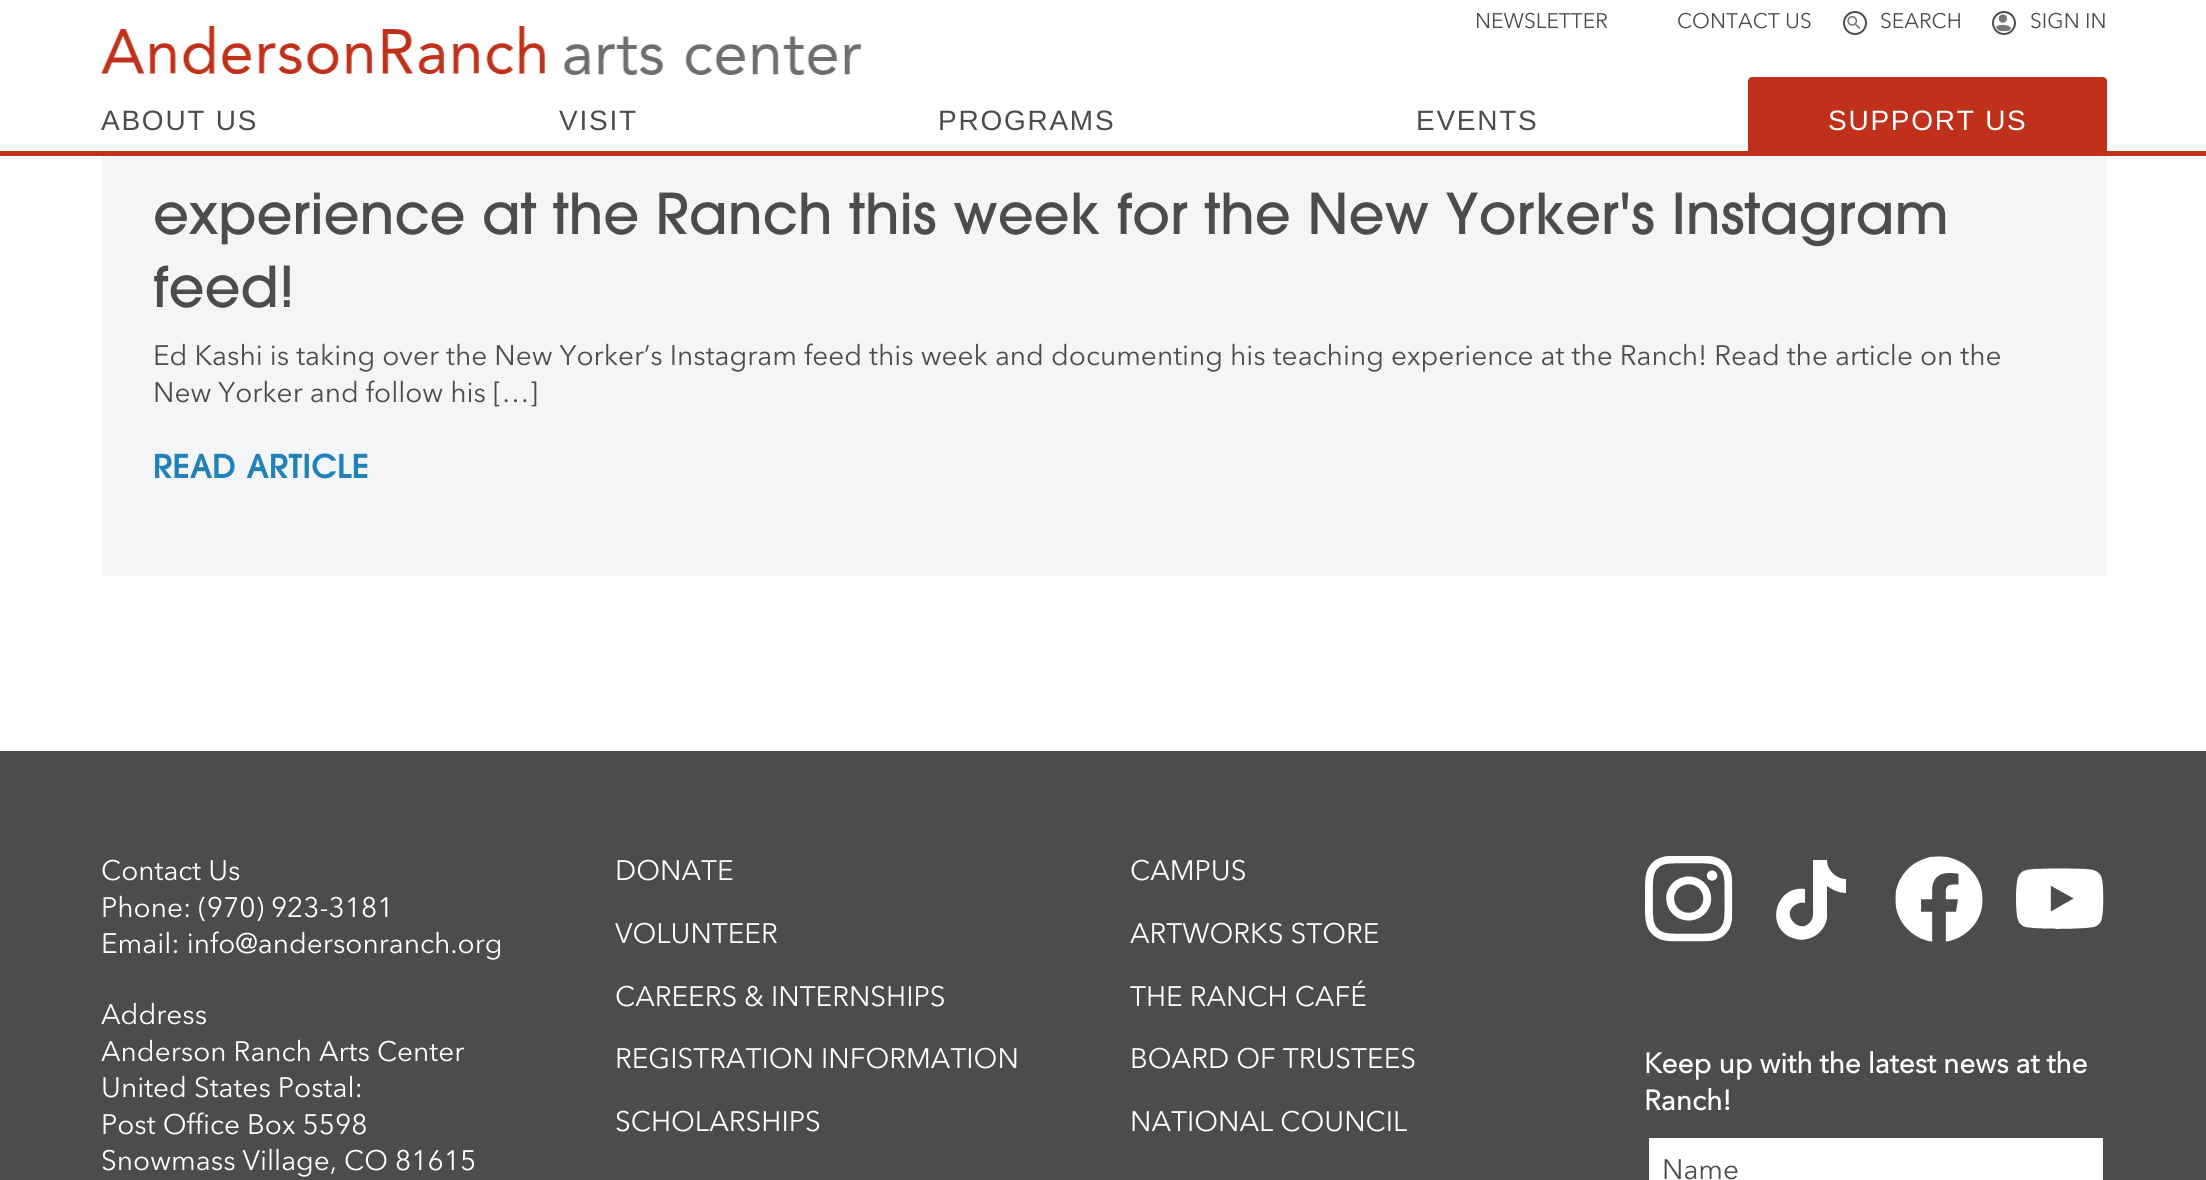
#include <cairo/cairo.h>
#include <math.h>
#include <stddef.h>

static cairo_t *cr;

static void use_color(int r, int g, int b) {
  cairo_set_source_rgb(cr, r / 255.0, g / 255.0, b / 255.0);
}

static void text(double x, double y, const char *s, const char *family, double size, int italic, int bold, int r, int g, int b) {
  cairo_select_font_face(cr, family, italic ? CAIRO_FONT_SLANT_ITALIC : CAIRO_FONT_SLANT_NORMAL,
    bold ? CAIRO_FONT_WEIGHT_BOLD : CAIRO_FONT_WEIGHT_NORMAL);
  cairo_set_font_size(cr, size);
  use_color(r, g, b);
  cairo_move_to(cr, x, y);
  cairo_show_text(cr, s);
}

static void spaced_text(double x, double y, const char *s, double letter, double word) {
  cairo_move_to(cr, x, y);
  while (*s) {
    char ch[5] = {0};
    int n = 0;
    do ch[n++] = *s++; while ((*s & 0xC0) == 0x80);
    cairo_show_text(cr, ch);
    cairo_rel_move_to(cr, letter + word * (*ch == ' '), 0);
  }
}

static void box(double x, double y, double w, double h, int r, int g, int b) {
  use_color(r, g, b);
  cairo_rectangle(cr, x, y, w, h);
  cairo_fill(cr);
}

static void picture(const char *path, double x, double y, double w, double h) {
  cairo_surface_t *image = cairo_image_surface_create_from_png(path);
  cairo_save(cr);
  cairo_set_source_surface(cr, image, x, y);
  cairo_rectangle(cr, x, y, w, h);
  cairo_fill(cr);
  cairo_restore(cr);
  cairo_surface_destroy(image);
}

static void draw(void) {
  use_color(255, 255, 255);
  cairo_paint(cr);
  cairo_arc(cr, 1855, 23, 11, 0, 2 * M_PI);
  use_color(76, 76, 78);
  cairo_stroke(cr);
  picture("img_01.png", 1847, 16, 13, 14);
  cairo_arc(cr, 2004, 23, 11, 0, 2 * M_PI);
  cairo_stroke(cr);
  picture("img_02.png", 1996, 14, 15, 18);
  picture("img_03.png", 101, 26, 760, 49);
  box(0, 151, 2206, 5, 191, 49, 27);
  cairo_new_path(cr);
  cairo_move_to(cr, 1752, 77);
  cairo_line_to(cr, 2103, 77);
  cairo_curve_to(cr, 2105, 77, 2107, 79, 2107, 81);
  cairo_line_to(cr, 2107, 156);
  cairo_line_to(cr, 1748, 156);
  cairo_line_to(cr, 1748, 81);
  cairo_curve_to(cr, 1748, 79, 1750, 77, 1752, 77);
  cairo_close_path(cr);
  cairo_fill(cr);
  box(102, 156, 2005, 420, 244, 245, 246);
  box(0, 751, 2206, 429, 76, 76, 78);
  picture("img_04.png", 1645, 856, 88, 86);
  use_color(255, 255, 255);
  cairo_new_path(cr);
  cairo_move_to(cr, 1846, 893);
  cairo_curve_to(cr, 1839, 893, 1833, 890, 1827, 886);
  cairo_line_to(cr, 1827, 918);
  cairo_curve_to(cr, 1825, 929, 1817, 937, 1807, 939);
  cairo_curve_to(cr, 1801, 941, 1794, 939, 1788, 936);
  cairo_curve_to(cr, 1765, 922, 1778, 885, 1805, 889);
  cairo_line_to(cr, 1805, 903);
  cairo_curve_to(cr, 1802, 902, 1798, 903, 1795, 905);
  cairo_curve_to(cr, 1780, 915, 1801, 936, 1811, 921);
  cairo_curve_to(cr, 1814, 917, 1813, 910, 1813, 905);
  cairo_line_to(cr, 1813, 860);
  cairo_line_to(cr, 1827, 860);
  cairo_curve_to(cr, 1827, 870, 1836, 879, 1846, 879);
  cairo_close_path(cr);
  cairo_fill(cr);
  picture("img_05.png", 1895, 856, 88, 86);
  picture("img_06.png", 2016, 868, 88, 61);
  box(1649, 1138, 454, 42, 255, 255, 255);
  text(1475, 28, "NEWSLETTER", "Avenir Next", 21, 0, 0, 76, 76, 78);
  text(1677, 28, "CONTACT US", "Avenir Next", 21, 0, 0, 76, 76, 78);
  text(1880, 28, "SEARCH", "Avenir Next", 21, 0, 0, 76, 76, 78);
  text(2030, 28, "SIGN IN", "Avenir Next", 21, 0, 0, 76, 76, 78);
  cairo_select_font_face(cr, "Liberation Sans", CAIRO_FONT_SLANT_NORMAL, CAIRO_FONT_WEIGHT_NORMAL);
  cairo_set_font_size(cr, 28);
  spaced_text(101, 130, "ABOUT US", 1.75, 0);
  spaced_text(559, 130, "VISIT", 1.75, 0);
  spaced_text(938, 130, "PROGRAMS", 1.75, 0);
  spaced_text(1416, 130, "EVENTS", 1.75, 0);
  use_color(255, 255, 255);
  spaced_text(1828, 130, "SUPPORT US", 1.75, 0);
  text(153, 234, "experience at the Ranch this week for the New Yorker's Instagram", "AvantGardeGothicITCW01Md", 56, 0, 0, 76, 76, 78);
  text(153, 307, "feed!", "AvantGardeGothicITCW01Md", 56, 0, 0, 76, 76, 78);
  text(153, 365, "Ed Kashi is taking over the New Yorker’s Instagram feed this week and documenting his teaching experience at the Ranch! Read the article on the", "Avenir Next", 28, 0, 0, 76, 76, 78);
  text(153, 402, "New Yorker and follow his […]", "Avenir Next", 28, 0, 0, 76, 76, 78);
  cairo_select_font_face(cr, "AvantGardeGothicITCW01Md", CAIRO_FONT_SLANT_NORMAL, CAIRO_FONT_WEIGHT_BOLD);
  cairo_set_font_size(cr, 31.5);
  use_color(33, 129, 185);
  spaced_text(153, 478, "READ ARTICLE", 0.9, 0);
  text(101, 880, "Contact Us", "Avenir Next", 28, 0, 0, 255, 255, 255);
  text(101, 917, "Phone: (970) 923-3181", "Avenir Next", 28, 0, 0, 255, 255, 255);
  text(101, 953, "Email: info@andersonranch.org", "Avenir Next", 28, 0, 0, 255, 255, 255);
  text(101, 1024, "Address", "Avenir Next", 28, 0, 0, 255, 255, 255);
  text(101, 1061, "Anderson Ranch Arts Center", "Avenir Next", 28, 0, 0, 255, 255, 255);
  text(101, 1097, "United States Postal:", "Avenir Next", 28, 0, 0, 255, 255, 255);
  text(101, 1134, "Post Office Box 5598", "Avenir Next", 28, 0, 0, 255, 255, 255);
  text(101, 1170, "Snowmass Village, CO 81615", "Avenir Next", 28, 0, 0, 255, 255, 255);
  text(615, 880, "DONATE", "Avenir Next", 28, 0, 0, 255, 255, 255);
  text(615, 943, "VOLUNTEER", "Avenir Next", 28, 0, 0, 255, 255, 255);
  text(615, 1006, "CAREERS & INTERNSHIPS", "Avenir Next", 28, 0, 0, 255, 255, 255);
  text(615, 1068, "REGISTRATION INFORMATION", "Avenir Next", 28, 0, 0, 255, 255, 255);
  text(615, 1131, "SCHOLARSHIPS", "Avenir Next", 28, 0, 0, 255, 255, 255);
  text(1130, 880, "CAMPUS", "Avenir Next", 28, 0, 0, 255, 255, 255);
  text(1130, 943, "ARTWORKS STORE", "Avenir Next", 28, 0, 0, 255, 255, 255);
  text(1130, 1006, "THE RANCH CAFÉ", "Avenir Next", 28, 0, 0, 255, 255, 255);
  text(1130, 1068, "BOARD OF TRUSTEES", "Avenir Next", 28, 0, 0, 255, 255, 255);
  text(1130, 1131, "NATIONAL COUNCIL", "Avenir Next", 28, 0, 0, 255, 255, 255);
  text(1644, 1073, "Keep up with the latest news at the", "Avenir Next", 28, 0, 1, 255, 255, 255);
  text(1644, 1110, "Ranch!", "Avenir Next", 28, 0, 1, 255, 255, 255);
  text(1662, 1179, "Name", "Avenir Next", 28, 0, 0, 76, 76, 78);
}

int main(void) {
  cairo_surface_t *surface = cairo_image_surface_create(CAIRO_FORMAT_RGB24, 2206, 1180);
  cr = cairo_create(surface);
  cairo_font_options_t *options = cairo_font_options_create();
  cairo_font_options_set_hint_metrics(options, CAIRO_HINT_METRICS_OFF);
  cairo_font_options_set_hint_style(options, CAIRO_HINT_STYLE_NONE);
  cairo_set_font_options(cr, options);
  cairo_set_miter_limit(cr, 4);
  draw();
  cairo_surface_write_to_png(surface, "out.png");
  cairo_font_options_destroy(options);
  cairo_destroy(cr);
  cairo_surface_destroy(surface);
  return 0;
}
